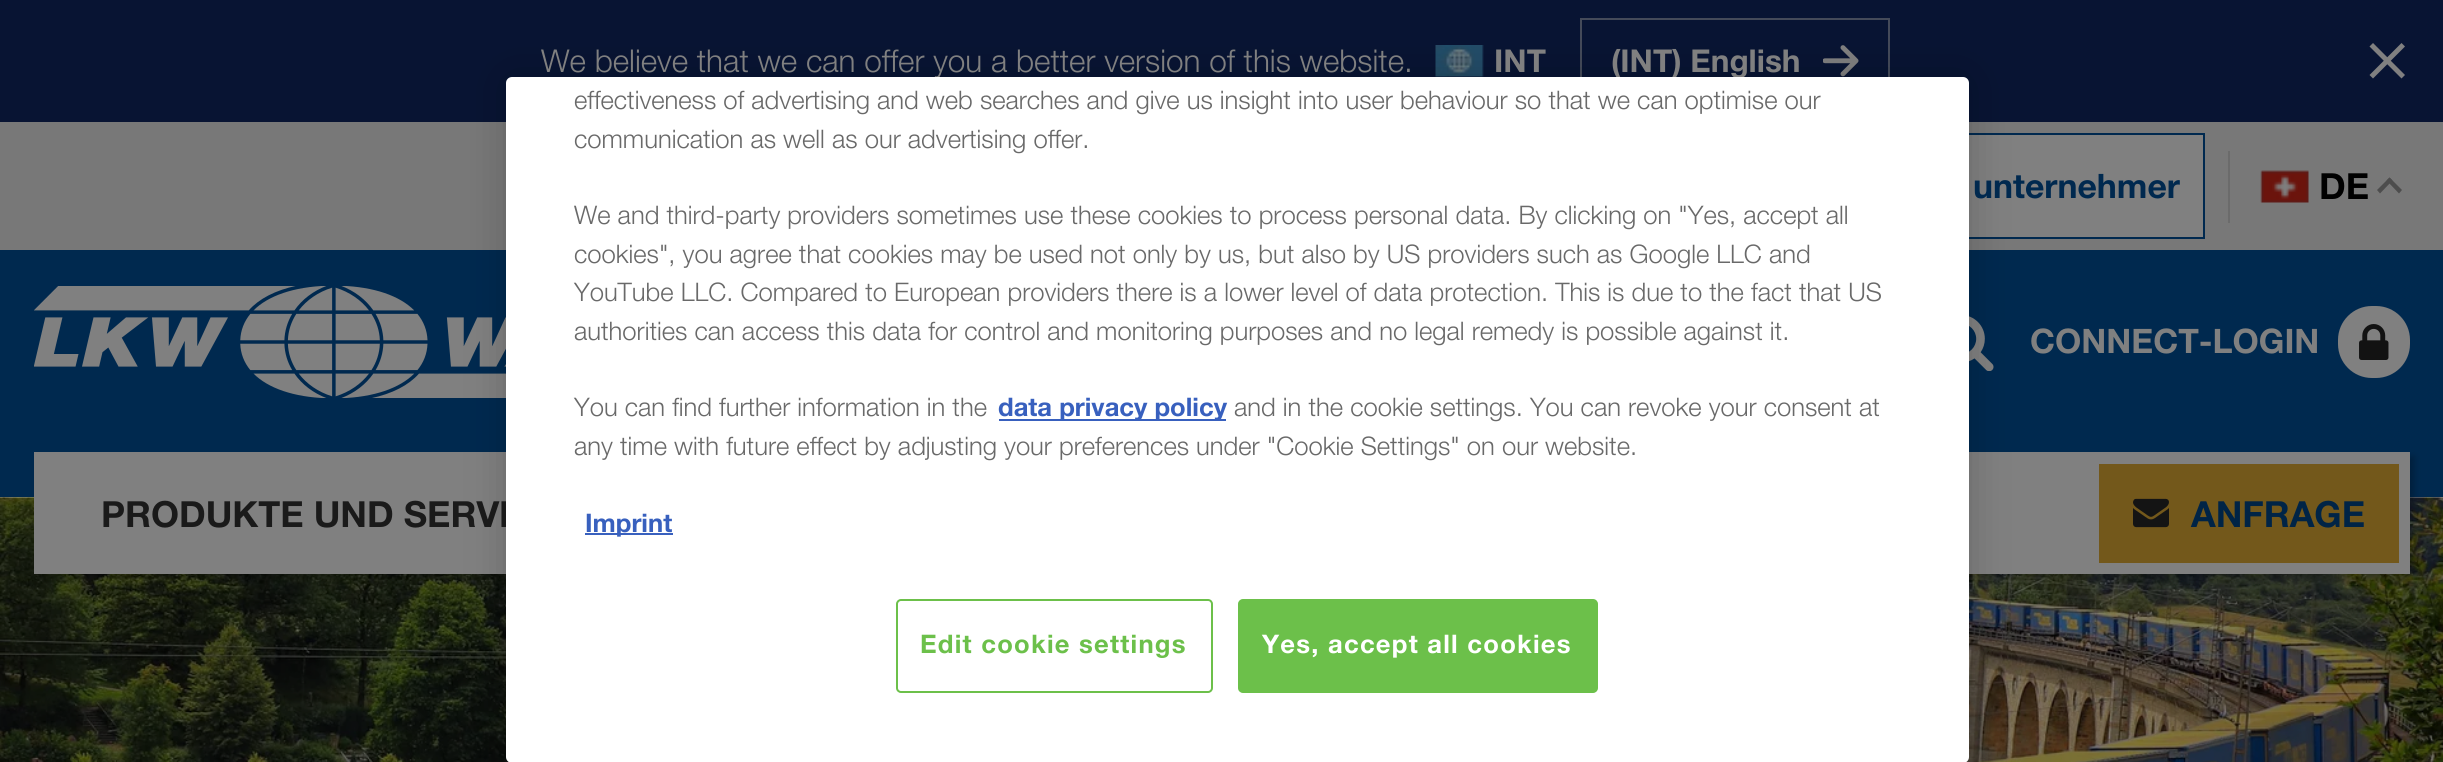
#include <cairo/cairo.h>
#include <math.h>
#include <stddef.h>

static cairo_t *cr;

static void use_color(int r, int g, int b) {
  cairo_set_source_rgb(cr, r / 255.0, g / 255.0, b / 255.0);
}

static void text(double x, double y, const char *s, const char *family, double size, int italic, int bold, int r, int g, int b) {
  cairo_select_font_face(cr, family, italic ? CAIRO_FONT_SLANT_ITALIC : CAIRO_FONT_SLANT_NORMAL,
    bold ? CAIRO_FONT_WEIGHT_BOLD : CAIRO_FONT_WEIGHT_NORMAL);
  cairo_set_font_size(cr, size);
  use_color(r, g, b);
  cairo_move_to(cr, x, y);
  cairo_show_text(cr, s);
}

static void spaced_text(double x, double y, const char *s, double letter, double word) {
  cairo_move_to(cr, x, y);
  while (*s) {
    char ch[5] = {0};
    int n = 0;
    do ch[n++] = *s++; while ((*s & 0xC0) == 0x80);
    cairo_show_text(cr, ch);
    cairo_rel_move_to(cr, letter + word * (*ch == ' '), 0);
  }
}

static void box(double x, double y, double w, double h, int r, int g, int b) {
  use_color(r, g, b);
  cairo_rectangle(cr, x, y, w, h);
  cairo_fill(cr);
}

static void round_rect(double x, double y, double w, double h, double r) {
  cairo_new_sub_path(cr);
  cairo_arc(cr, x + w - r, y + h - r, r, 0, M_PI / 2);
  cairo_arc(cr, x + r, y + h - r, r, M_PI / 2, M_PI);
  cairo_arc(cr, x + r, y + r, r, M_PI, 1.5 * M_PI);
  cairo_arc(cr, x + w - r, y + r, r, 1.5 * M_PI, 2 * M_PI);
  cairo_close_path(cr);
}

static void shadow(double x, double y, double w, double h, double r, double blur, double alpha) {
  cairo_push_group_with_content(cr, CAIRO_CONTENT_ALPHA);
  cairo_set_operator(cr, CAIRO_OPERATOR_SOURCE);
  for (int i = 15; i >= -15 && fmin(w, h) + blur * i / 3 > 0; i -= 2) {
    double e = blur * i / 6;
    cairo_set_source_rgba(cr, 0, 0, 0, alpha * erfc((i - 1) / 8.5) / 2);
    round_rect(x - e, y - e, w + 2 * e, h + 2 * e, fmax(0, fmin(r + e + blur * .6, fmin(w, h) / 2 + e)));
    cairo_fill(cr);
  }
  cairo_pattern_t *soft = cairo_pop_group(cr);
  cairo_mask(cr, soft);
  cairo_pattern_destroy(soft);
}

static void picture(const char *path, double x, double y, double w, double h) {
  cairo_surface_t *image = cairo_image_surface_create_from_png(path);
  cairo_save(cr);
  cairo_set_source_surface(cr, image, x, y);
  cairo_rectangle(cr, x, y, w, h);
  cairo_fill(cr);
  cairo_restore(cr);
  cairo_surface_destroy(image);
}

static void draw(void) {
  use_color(255, 255, 255);
  cairo_paint(cr);
  box(0, 0, 2443, 122, 8, 20, 51);
  picture("img_01.png", 1435, 45, 49, 32);
  cairo_rectangle(cr, 1581, 19, 308, 84);
  use_color(68, 74, 89);
  cairo_stroke(cr);
  picture("img_02.png", 1823, 45, 36, 32);
  use_color(128, 128, 128);
  cairo_new_path(cr);
  cairo_move_to(cr, 2401.5, 43);
  cairo_line_to(cr, 2405, 46.5);
  cairo_line_to(cr, 2373, 78.5);
  cairo_line_to(cr, 2369.5, 75);
  cairo_close_path(cr);
  cairo_fill(cr);
  cairo_new_path(cr);
  cairo_move_to(cr, 2369.5, 46.5);
  cairo_line_to(cr, 2373, 43);
  cairo_line_to(cr, 2405, 75);
  cairo_line_to(cr, 2401.5, 78.5);
  cairo_close_path(cr);
  cairo_fill(cr);
  box(0, 122, 2443, 128, 120, 120, 120);
  box(1969, 135, 234, 102, 128, 128, 128);
  cairo_rectangle(cr, 1601, 134, 603, 104);
  use_color(0, 41, 79);
  cairo_stroke(cr);
  box(0, 250, 2443, 247, 0, 41, 79);
  picture("img_04.png", 34, 286, 472, 112);
  picture("img_05.png", 1969, 316, 25, 55);
  picture("img_08.png", 0, 497, 2443, 265);
  use_color(0, 0, 0);
  shadow(38, 457, 2376, 121, 0, 3.5, 0.25);
  box(34, 452, 2376, 122, 128, 128, 128);
  use_color(0, 0, 0);
  shadow(506, 77, 1463, 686, 6, 20, 0.2);
  box(2228, 151, 2, 72, 107, 107, 107);
  picture("img_03.png", 2260, 170, 49, 33);
  use_color(77, 77, 77);
  cairo_new_path(cr);
  cairo_move_to(cr, 2380, 193.5);
  cairo_line_to(cr, 2377, 190);
  cairo_line_to(cr, 2389.5, 177.5);
  cairo_line_to(cr, 2392.5, 180.5);
  cairo_close_path(cr);
  cairo_fill(cr);
  cairo_new_path(cr);
  cairo_move_to(cr, 2399, 193.5);
  cairo_line_to(cr, 2386.5, 180.5);
  cairo_line_to(cr, 2389.5, 177.5);
  cairo_line_to(cr, 2402, 190);
  cairo_close_path(cr);
  cairo_fill(cr);
  use_color(128, 128, 128);
  round_rect(2338, 306, 72, 72, 34);
  cairo_fill(cr);
  picture("img_06.png", 2359, 324, 30, 36);
  box(2099, 464, 300, 99, 115, 88, 27);
  picture("img_07.png", 2133, 498, 36, 30);
  text(541, 72, "We believe that we can offer you a better version of this website.", "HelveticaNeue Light", 31.5, 0, 0, 128, 128, 128);
  text(1494, 72, "INT", "HelveticaNeue", 31.5, 0, 1, 128, 128, 128);
  text(1611, 72, "(INT) English", "HelveticaNeue", 31.5, 0, 1, 128, 128, 128);
  text(1973, 198, "unternehmer", "HelveticaNeue", 33.75, 0, 1, 0, 41, 79);
  text(2319, 199, "DE", "HelveticaNeue", 36, 0, 1, 0, 0, 0);
  text(2030, 353, "CONNECT-LOGIN", "HelveticaNeue", 33.75, 0, 1, 128, 128, 128);
  text(101, 527, "PRODUKTE UND SERVI", "HelveticaNeue", 36, 0, 1, 26, 26, 26);
  use_color(255, 255, 255);
  round_rect(506, 77, 1463, 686, 6);
  cairo_fill(cr);
  round_rect(897, 600, 315, 92, 4);
  use_color(108, 192, 74);
  cairo_stroke(cr);
  cairo_set_font_size(cr, 25.6);
  spaced_text(920, 653, "Edit cookie settings", 1.25, 0);
  round_rect(1239, 600, 358, 92, 4);
  cairo_fill_preserve(cr);
  cairo_stroke(cr);
  use_color(255, 255, 255);
  spaced_text(1262, 653, "Yes, accept all cookies", 1.25, 0);
  box(585, 533, 88, 2, 56, 96, 190);
  text(585, 532, "Imprint", "HelveticaNeue", 25.6, 0, 1, 56, 96, 190);
  text(574, 455, "any time with future effect by adjusting your preferences under \"Cookie Settings\" on our website.", "HelveticaNeue Light", 25.6, 0, 0, 105, 105, 105);
  text(1234, 416, "and in the cookie settings. You can revoke your consent at", "HelveticaNeue Light", 25.6, 0, 0, 105, 105, 105);
  box(999, 419, 227, 2, 56, 96, 190);
  text(998, 416, "data privacy policy", "HelveticaNeue", 25.6, 0, 1, 56, 96, 190);
  text(574, 416, "You can find further information in the", "HelveticaNeue Light", 25.6, 0, 0, 105, 105, 105);
  text(574, 340, "authorities can access this data for control and monitoring purposes and no legal remedy is possible against it.", "HelveticaNeue Light", 25.6, 0, 0, 105, 105, 105);
  text(574, 301, "YouTube LLC. Compared to European providers there is a lower level of data protection. This is due to the fact that US", "HelveticaNeue Light", 25.6, 0, 0, 105, 105, 105);
  text(574, 263, "cookies\", you agree that cookies may be used not only by us, but also by US providers such as Google LLC and", "HelveticaNeue Light", 25.6, 0, 0, 105, 105, 105);
  text(574, 224, "We and third-party providers sometimes use these cookies to process personal data. By clicking on \"Yes, accept all", "HelveticaNeue Light", 25.6, 0, 0, 105, 105, 105);
  text(574, 148, "communication as well as our advertising offer.", "HelveticaNeue Light", 25.6, 0, 0, 105, 105, 105);
  text(574, 109, "effectiveness of advertising and web searches and give us insight into user behaviour so that we can optimise our", "HelveticaNeue Light", 25.6, 0, 0, 105, 105, 105);
  text(2191, 527, "ANFRAGE", "HelveticaNeue", 36, 0, 1, 0, 36, 70);
}

int main(void) {
  cairo_surface_t *surface = cairo_image_surface_create(CAIRO_FORMAT_RGB24, 2443, 762);
  cr = cairo_create(surface);
  cairo_font_options_t *options = cairo_font_options_create();
  cairo_font_options_set_hint_metrics(options, CAIRO_HINT_METRICS_OFF);
  cairo_font_options_set_hint_style(options, CAIRO_HINT_STYLE_NONE);
  cairo_set_font_options(cr, options);
  cairo_set_miter_limit(cr, 4);
  draw();
  cairo_surface_write_to_png(surface, "out.png");
  cairo_font_options_destroy(options);
  cairo_destroy(cr);
  cairo_surface_destroy(surface);
  return 0;
}
